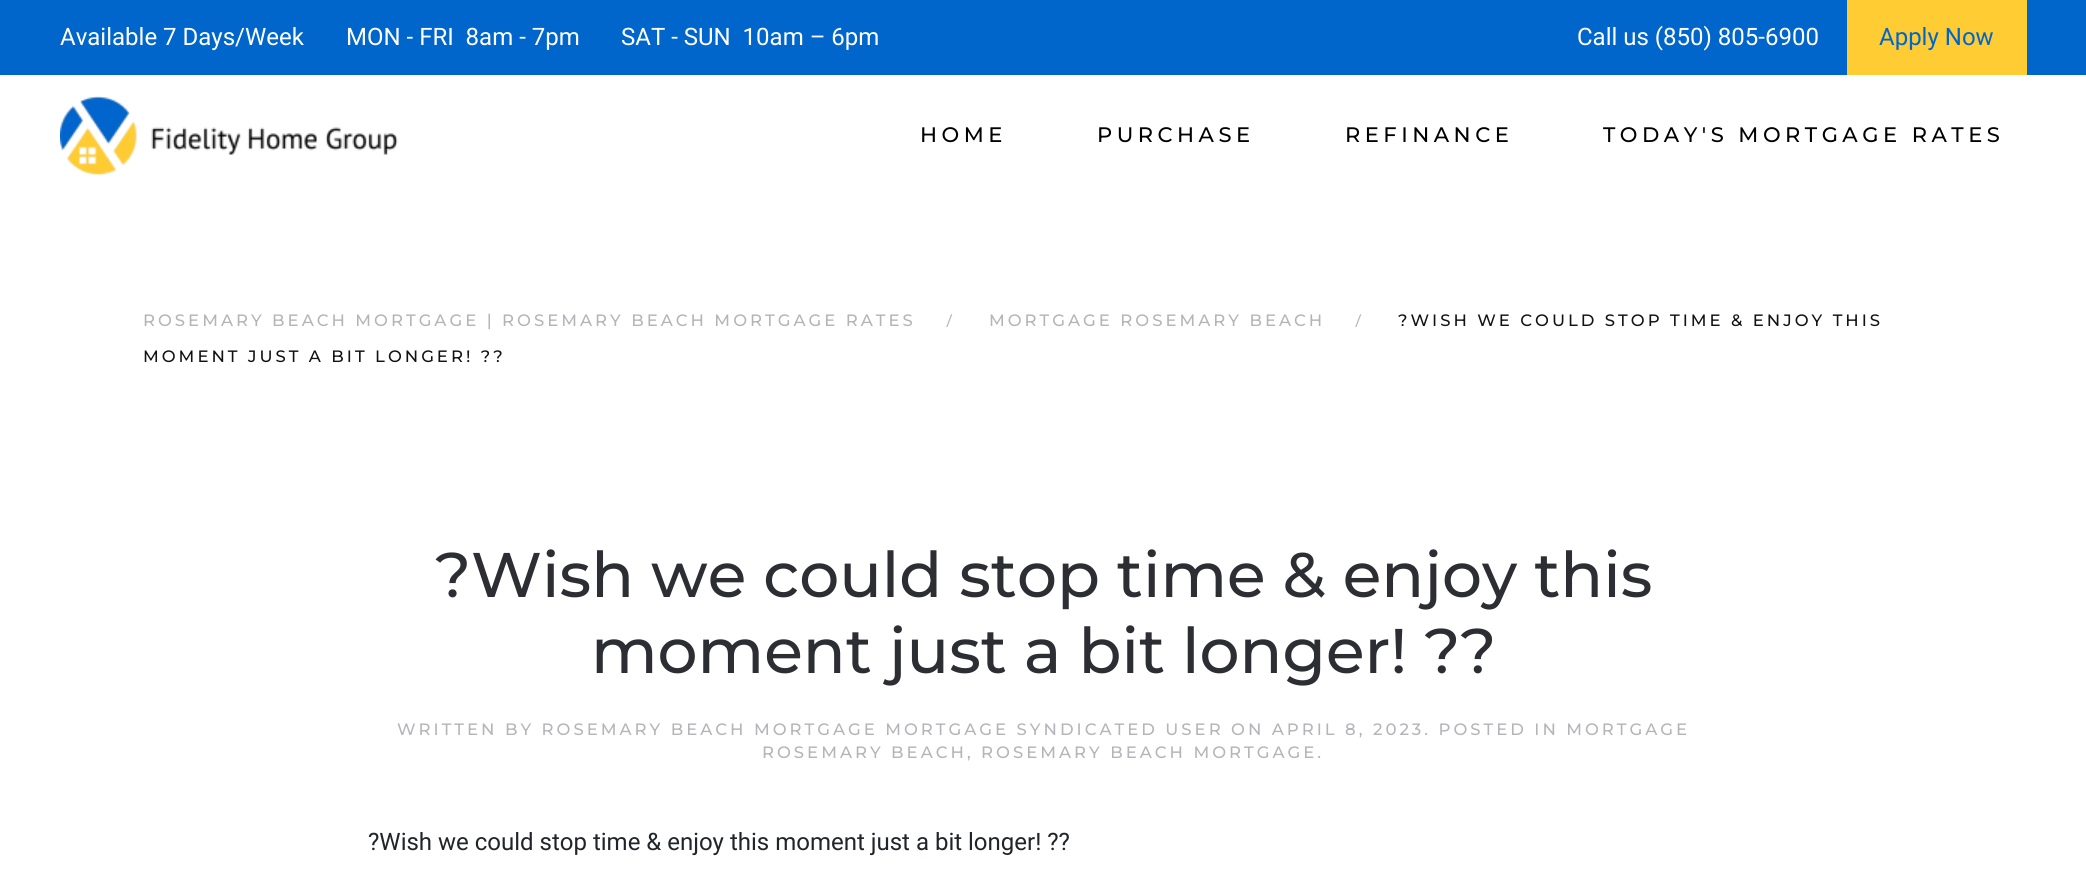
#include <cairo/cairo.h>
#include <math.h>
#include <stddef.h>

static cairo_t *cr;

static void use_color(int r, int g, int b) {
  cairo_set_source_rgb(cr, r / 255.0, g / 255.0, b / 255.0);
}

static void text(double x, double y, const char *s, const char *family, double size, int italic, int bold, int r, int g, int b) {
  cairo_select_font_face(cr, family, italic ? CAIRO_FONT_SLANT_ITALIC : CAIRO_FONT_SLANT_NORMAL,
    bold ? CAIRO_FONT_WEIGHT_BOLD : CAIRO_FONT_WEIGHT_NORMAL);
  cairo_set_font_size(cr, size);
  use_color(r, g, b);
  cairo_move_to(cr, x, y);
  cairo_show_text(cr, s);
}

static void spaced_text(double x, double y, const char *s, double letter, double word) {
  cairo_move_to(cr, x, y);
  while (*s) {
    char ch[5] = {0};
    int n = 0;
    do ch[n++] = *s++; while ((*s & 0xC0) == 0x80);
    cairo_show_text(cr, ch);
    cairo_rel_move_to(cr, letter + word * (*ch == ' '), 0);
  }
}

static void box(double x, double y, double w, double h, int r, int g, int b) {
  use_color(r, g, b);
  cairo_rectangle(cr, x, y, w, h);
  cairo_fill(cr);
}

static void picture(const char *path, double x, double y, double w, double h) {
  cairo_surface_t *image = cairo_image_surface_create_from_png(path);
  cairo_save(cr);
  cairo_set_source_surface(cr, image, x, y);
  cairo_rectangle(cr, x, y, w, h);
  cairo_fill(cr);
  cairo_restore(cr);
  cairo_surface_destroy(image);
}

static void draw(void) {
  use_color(255, 255, 255);
  cairo_paint(cr);
  box(0, 0, 2086, 75, 0, 102, 204);
  box(1847, 0, 180, 75, 255, 204, 51);
  picture("img_01.png", 60, 96, 338, 80);
  text(60, 45, "Available 7 Days/Week", "Roboto", 24, 0, 0, 255, 255, 255);
  text(346, 45, "MON - FRI  8am - 7pm", "Roboto", 24, 0, 0, 255, 255, 255);
  text(621, 45, "SAT - SUN  10am – 6pm", "Roboto", 24, 0, 0, 255, 255, 255);
  text(1577, 45, "Call us (850) 805-6900", "Roboto", 24, 0, 0, 255, 255, 255);
  text(1879, 45, "Apply Now", "Roboto", 24, 0, 0, 0, 102, 204);
  cairo_select_font_face(cr, "Montserrat Thin", CAIRO_FONT_SLANT_NORMAL, CAIRO_FONT_WEIGHT_NORMAL);
  cairo_set_font_size(cr, 21);
  use_color(0, 0, 0);
  spaced_text(920, 142, "HOME", 4.5, 0);
  spaced_text(1097, 142, "PURCHASE", 4.5, 0);
  spaced_text(1345, 142, "REFINANCE", 4.5, 0);
  spaced_text(1603, 142, "TODAY'S MORTGAGE RATES", 4.5, 0);
  cairo_set_font_size(cr, 16.5);
  use_color(180, 181, 186);
  spaced_text(143, 326, "ROSEMARY BEACH MORTGAGE | ROSEMARY BEACH MORTGAGE RATES", 3, 0);
  text(1355, 326, "/", "Roboto", 16.5, 0, 0, 180, 181, 186);
  cairo_select_font_face(cr, "Montserrat Thin", CAIRO_FONT_SLANT_NORMAL, CAIRO_FONT_WEIGHT_NORMAL);
  use_color(18, 18, 18);
  spaced_text(1398, 326, "?WISH WE COULD STOP TIME & ENJOY THIS", 3, 0);
  spaced_text(143, 362, "MOMENT JUST A BIT LONGER! ?\077", 3, 0);
  text(946, 326, "/", "Roboto", 16.5, 0, 0, 180, 181, 186);
  cairo_select_font_face(cr, "Montserrat Thin", CAIRO_FONT_SLANT_NORMAL, CAIRO_FONT_WEIGHT_NORMAL);
  spaced_text(989, 326, "MORTGAGE ROSEMARY BEACH", 3, 0);
  text(435, 597, "?Wish we could stop time & enjoy this", "Montserrat Thin", 63, 0, 0, 45, 46, 51);
  text(591, 673, "moment just a bit longer! ?\077", "Montserrat Thin", 63, 0, 0, 45, 46, 51);
  cairo_set_font_size(cr, 16.5);
  use_color(180, 181, 186);
  spaced_text(397, 735, "WRITTEN BY ROSEMARY BEACH MORTGAGE MORTGAGE SYNDICATED USER ON APRIL 8, 2023. POSTED IN MORTGAGE", 3, 0);
  spaced_text(762, 758, "ROSEMARY BEACH, ROSEMARY BEACH MORTGAGE.", 3, 0);
  text(368, 850, "?Wish we could stop time & enjoy this moment just a bit longer! ?\077", "Roboto", 24, 0, 0, 33, 37, 41);
}

int main(void) {
  cairo_surface_t *surface = cairo_image_surface_create(CAIRO_FORMAT_RGB24, 2086, 878);
  cr = cairo_create(surface);
  cairo_font_options_t *options = cairo_font_options_create();
  cairo_font_options_set_hint_metrics(options, CAIRO_HINT_METRICS_OFF);
  cairo_font_options_set_hint_style(options, CAIRO_HINT_STYLE_NONE);
  cairo_set_font_options(cr, options);
  cairo_set_miter_limit(cr, 4);
  draw();
  cairo_surface_write_to_png(surface, "out.png");
  cairo_font_options_destroy(options);
  cairo_destroy(cr);
  cairo_surface_destroy(surface);
  return 0;
}
